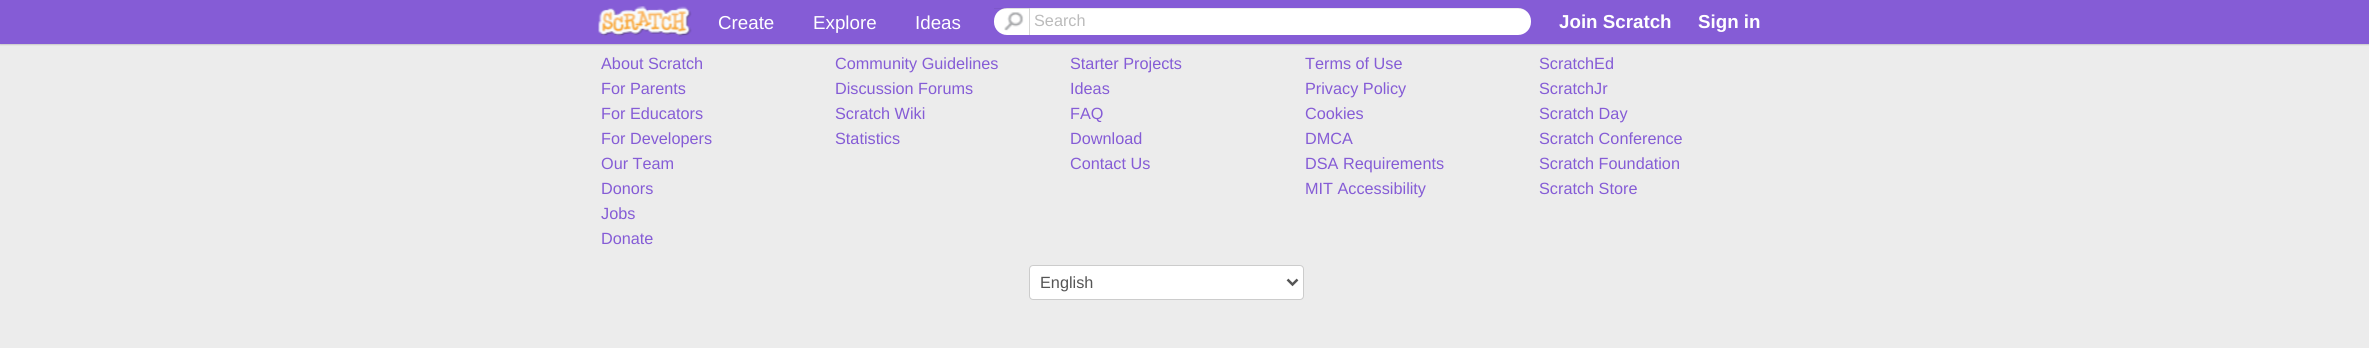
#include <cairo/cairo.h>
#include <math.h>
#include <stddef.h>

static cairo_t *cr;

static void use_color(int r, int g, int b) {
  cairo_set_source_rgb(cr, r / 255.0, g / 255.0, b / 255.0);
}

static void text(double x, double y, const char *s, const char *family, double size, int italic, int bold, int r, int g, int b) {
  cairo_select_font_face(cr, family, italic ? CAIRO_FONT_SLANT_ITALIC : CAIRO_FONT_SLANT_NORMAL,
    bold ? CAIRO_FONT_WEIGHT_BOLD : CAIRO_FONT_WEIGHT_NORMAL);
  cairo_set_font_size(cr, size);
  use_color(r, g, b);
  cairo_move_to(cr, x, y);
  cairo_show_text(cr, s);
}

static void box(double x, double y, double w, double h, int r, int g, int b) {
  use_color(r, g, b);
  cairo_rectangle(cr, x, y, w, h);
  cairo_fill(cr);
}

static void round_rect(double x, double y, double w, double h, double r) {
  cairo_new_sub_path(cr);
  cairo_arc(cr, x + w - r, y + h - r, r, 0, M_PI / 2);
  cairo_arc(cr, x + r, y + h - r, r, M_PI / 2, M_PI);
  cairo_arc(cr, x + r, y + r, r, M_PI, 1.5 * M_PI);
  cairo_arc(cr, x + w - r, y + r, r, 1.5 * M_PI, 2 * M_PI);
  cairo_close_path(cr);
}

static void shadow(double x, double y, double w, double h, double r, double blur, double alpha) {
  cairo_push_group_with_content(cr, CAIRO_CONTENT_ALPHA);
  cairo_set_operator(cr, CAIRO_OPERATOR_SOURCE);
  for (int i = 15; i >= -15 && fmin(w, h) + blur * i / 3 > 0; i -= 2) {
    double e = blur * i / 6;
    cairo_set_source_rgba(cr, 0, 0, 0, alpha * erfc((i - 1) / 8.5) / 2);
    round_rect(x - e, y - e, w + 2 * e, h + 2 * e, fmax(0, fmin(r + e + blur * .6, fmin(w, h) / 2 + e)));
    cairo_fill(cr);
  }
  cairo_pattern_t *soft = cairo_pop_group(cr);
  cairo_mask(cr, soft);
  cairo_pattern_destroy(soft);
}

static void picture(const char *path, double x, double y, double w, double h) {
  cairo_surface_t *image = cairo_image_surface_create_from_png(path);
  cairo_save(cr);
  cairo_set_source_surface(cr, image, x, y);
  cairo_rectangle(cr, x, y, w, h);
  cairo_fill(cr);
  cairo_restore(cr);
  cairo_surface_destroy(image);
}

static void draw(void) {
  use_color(236, 236, 236);
  cairo_paint(cr);
  use_color(204, 204, 204);
  shadow(0, 1, 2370, 44, 0, 0.5, 1);
  box(0, 0, 2369, 44, 133, 92, 214);
  picture("img_01.png", 598, 6, 94, 31);
  use_color(255, 255, 255);
  round_rect(994, 8, 537, 27, 13);
  cairo_fill(cr);
  cairo_set_source_rgba(cr, 0, 0, 0, 0.07);
  cairo_new_path(cr);
  cairo_move_to(cr, 1006, 9);
  cairo_line_to(cr, 1519, 9);
  cairo_curve_to(cr, 1523, 9, 1527, 11, 1529, 14);
  cairo_curve_to(cr, 1526, 10, 1523, 8, 1518, 8);
  cairo_line_to(cr, 1007, 8);
  cairo_curve_to(cr, 1002, 8, 999, 10, 996, 14);
  cairo_curve_to(cr, 998, 11, 1002, 9, 1006, 9);
  cairo_close_path(cr);
  cairo_fill(cr);
  picture("img_02.png", 1004, 12, 20, 19);
  cairo_set_source_rgba(cr, 0, 0, 0, 0.06);
  cairo_rectangle(cr, 994, 8, 35, 1);
  cairo_fill(cr);
  cairo_set_source_rgba(cr, 0.8, 0.8, 0.8, 0.8);
  cairo_rectangle(cr, 1029, 8, 1, 27);
  cairo_fill(cr);
  use_color(255, 255, 255);
  round_rect(1029.5, 265.5, 274, 34, 3.5);
  cairo_fill_preserve(cr);
  use_color(204, 204, 204);
  cairo_set_line_width(cr, 1);
  cairo_stroke(cr);
  cairo_new_path(cr);
  cairo_move_to(cr, 1287.5, 279.5);
  cairo_line_to(cr, 1292.5, 284.5);
  cairo_line_to(cr, 1297.5, 279.5);
  use_color(85, 85, 85);
  cairo_set_line_width(cr, 2.5);
  cairo_stroke(cr);
  text(718, 29, "Create", "Liberation Sans", 18.75, 0, 0, 255, 255, 255);
  text(813, 29, "Explore", "Liberation Sans", 18.75, 0, 0, 255, 255, 255);
  text(915, 29, "Ideas", "Liberation Sans", 18.75, 0, 0, 255, 255, 255);
  text(1034, 26, "Search", "Liberation Sans", 16.25, 0, 0, 187, 187, 187);
  text(1559, 28, "Join Scratch", "Liberation Sans", 18.75, 0, 1, 255, 255, 255);
  text(1698, 28, "Sign in", "Liberation Sans", 18.75, 0, 1, 255, 255, 255);
  text(601, 69, "About Scratch", "Liberation Sans", 16.25, 0, 0, 133, 92, 214);
  text(601, 94, "For Parents", "Liberation Sans", 16.25, 0, 0, 133, 92, 214);
  text(601, 119, "For Educators", "Liberation Sans", 16.25, 0, 0, 133, 92, 214);
  text(601, 144, "For Developers", "Liberation Sans", 16.25, 0, 0, 133, 92, 214);
  text(601, 169, "Our Team", "Liberation Sans", 16.25, 0, 0, 133, 92, 214);
  text(601, 194, "Donors", "Liberation Sans", 16.25, 0, 0, 133, 92, 214);
  text(601, 219, "Jobs", "Liberation Sans", 16.25, 0, 0, 133, 92, 214);
  text(601, 244, "Donate", "Liberation Sans", 16.25, 0, 0, 133, 92, 214);
  text(835, 69, "Community Guidelines", "Liberation Sans", 16.25, 0, 0, 133, 92, 214);
  text(835, 94, "Discussion Forums", "Liberation Sans", 16.25, 0, 0, 133, 92, 214);
  text(835, 119, "Scratch Wiki", "Liberation Sans", 16.25, 0, 0, 133, 92, 214);
  text(835, 144, "Statistics", "Liberation Sans", 16.25, 0, 0, 133, 92, 214);
  text(1070, 69, "Starter Projects", "Liberation Sans", 16.25, 0, 0, 133, 92, 214);
  text(1070, 94, "Ideas", "Liberation Sans", 16.25, 0, 0, 133, 92, 214);
  text(1070, 119, "FAQ", "Liberation Sans", 16.25, 0, 0, 133, 92, 214);
  text(1070, 144, "Download", "Liberation Sans", 16.25, 0, 0, 133, 92, 214);
  text(1070, 169, "Contact Us", "Liberation Sans", 16.25, 0, 0, 133, 92, 214);
  text(1305, 69, "Terms of Use", "Liberation Sans", 16.25, 0, 0, 133, 92, 214);
  text(1305, 94, "Privacy Policy", "Liberation Sans", 16.25, 0, 0, 133, 92, 214);
  text(1305, 119, "Cookies", "Liberation Sans", 16.25, 0, 0, 133, 92, 214);
  text(1305, 144, "DMCA", "Liberation Sans", 16.25, 0, 0, 133, 92, 214);
  text(1305, 169, "DSA Requirements", "Liberation Sans", 16.25, 0, 0, 133, 92, 214);
  text(1305, 194, "MIT Accessibility", "Liberation Sans", 16.25, 0, 0, 133, 92, 214);
  text(1539, 69, "ScratchEd", "Liberation Sans", 16.25, 0, 0, 133, 92, 214);
  text(1539, 94, "ScratchJr", "Liberation Sans", 16.25, 0, 0, 133, 92, 214);
  text(1539, 119, "Scratch Day", "Liberation Sans", 16.25, 0, 0, 133, 92, 214);
  text(1539, 144, "Scratch Conference", "Liberation Sans", 16.25, 0, 0, 133, 92, 214);
  text(1539, 169, "Scratch Foundation", "Liberation Sans", 16.25, 0, 0, 133, 92, 214);
  text(1539, 194, "Scratch Store", "Liberation Sans", 16.25, 0, 0, 133, 92, 214);
  text(1040, 288, "English", "Liberation Sans", 16.25, 0, 0, 85, 85, 85);
}

int main(void) {
  cairo_surface_t *surface = cairo_image_surface_create(CAIRO_FORMAT_RGB24, 2369, 348);
  cr = cairo_create(surface);
  cairo_font_options_t *options = cairo_font_options_create();
  cairo_font_options_set_hint_metrics(options, CAIRO_HINT_METRICS_OFF);
  cairo_font_options_set_hint_style(options, CAIRO_HINT_STYLE_NONE);
  cairo_set_font_options(cr, options);
  cairo_set_miter_limit(cr, 4);
  draw();
  cairo_surface_write_to_png(surface, "out.png");
  cairo_font_options_destroy(options);
  cairo_destroy(cr);
  cairo_surface_destroy(surface);
  return 0;
}
